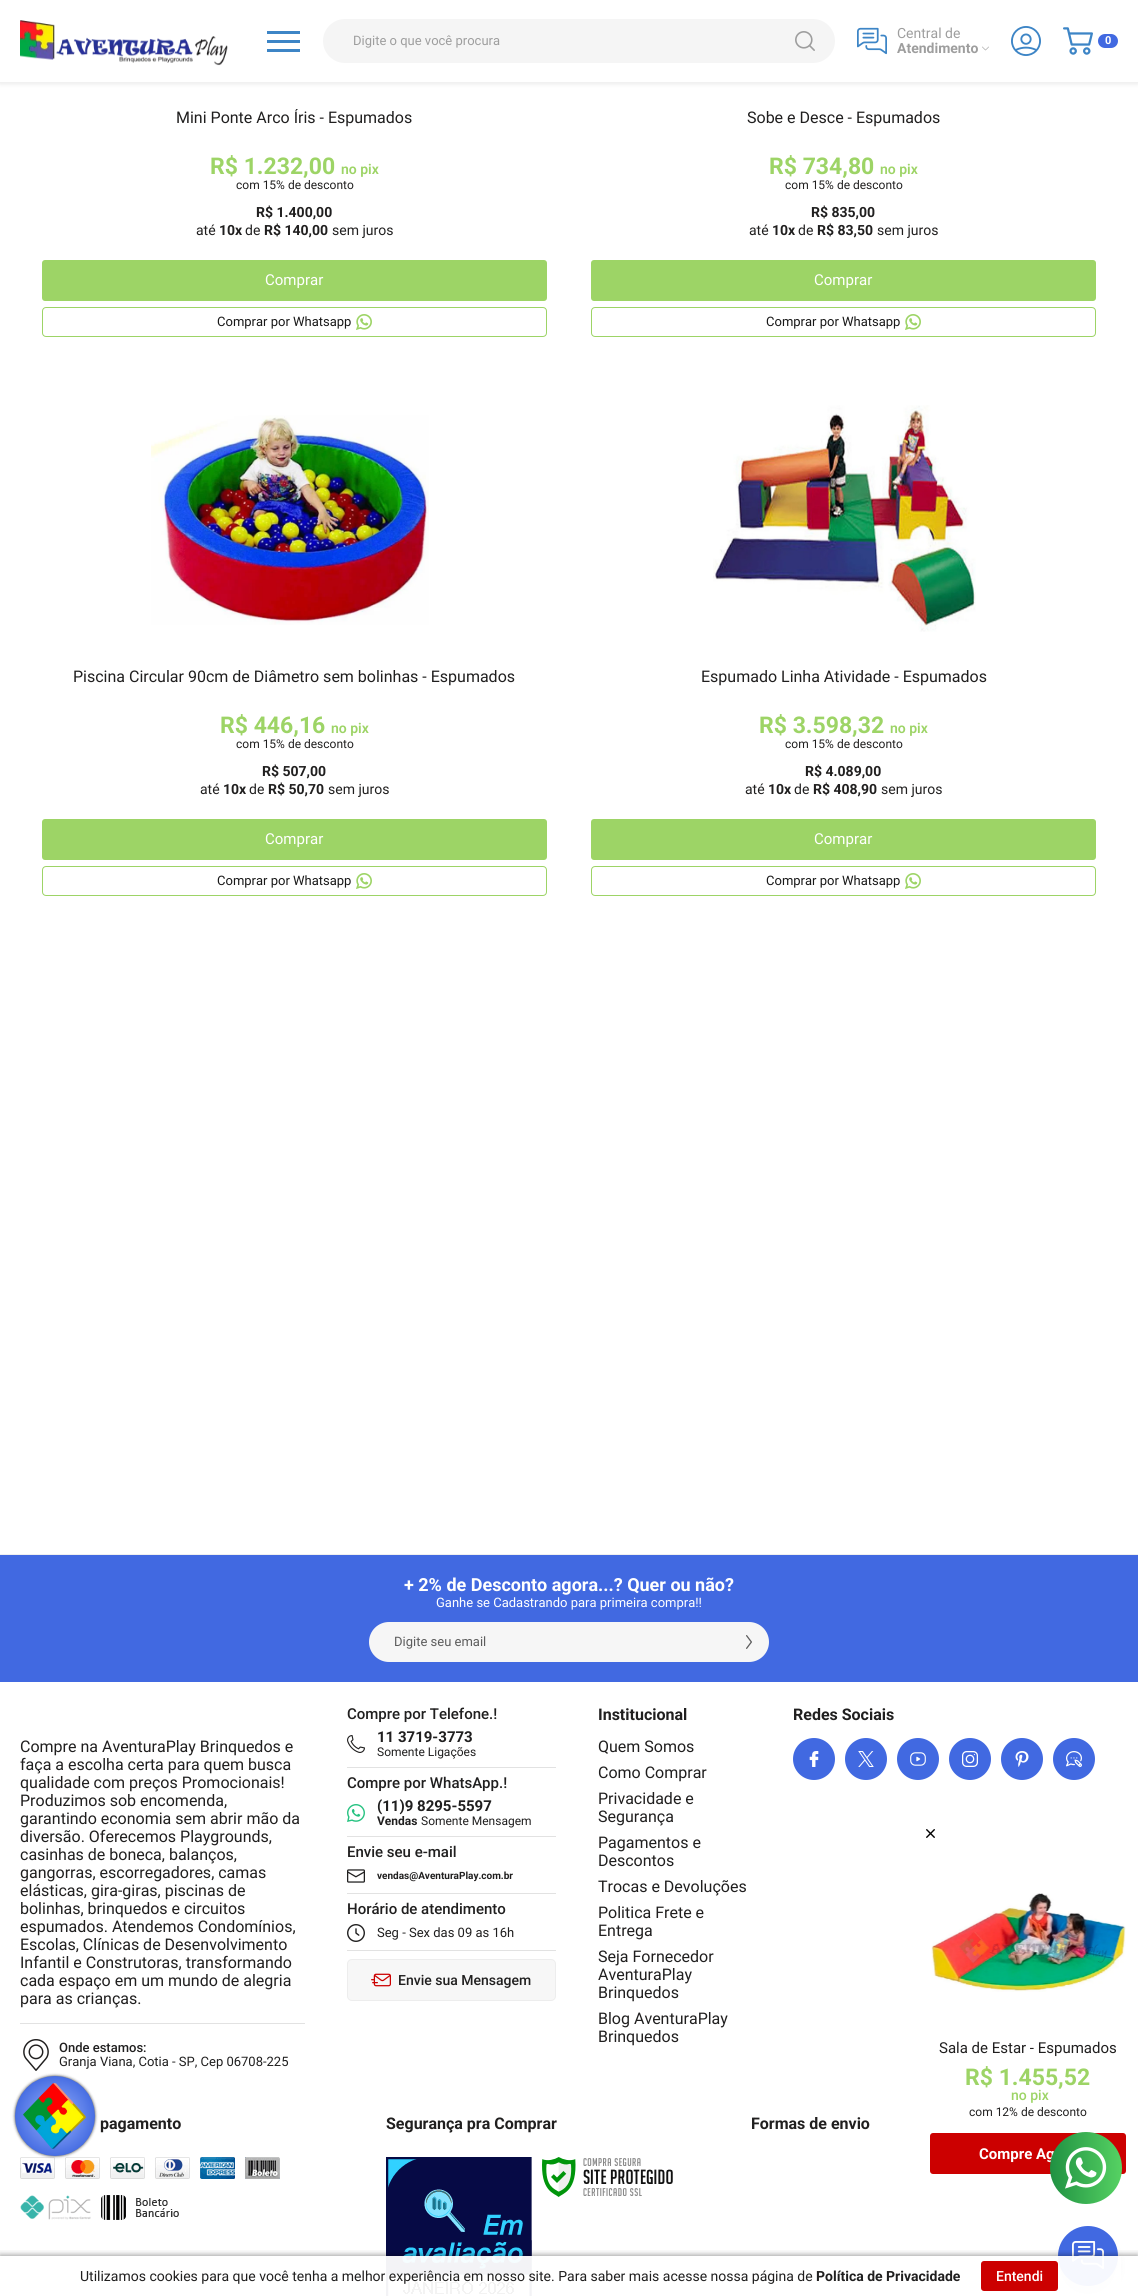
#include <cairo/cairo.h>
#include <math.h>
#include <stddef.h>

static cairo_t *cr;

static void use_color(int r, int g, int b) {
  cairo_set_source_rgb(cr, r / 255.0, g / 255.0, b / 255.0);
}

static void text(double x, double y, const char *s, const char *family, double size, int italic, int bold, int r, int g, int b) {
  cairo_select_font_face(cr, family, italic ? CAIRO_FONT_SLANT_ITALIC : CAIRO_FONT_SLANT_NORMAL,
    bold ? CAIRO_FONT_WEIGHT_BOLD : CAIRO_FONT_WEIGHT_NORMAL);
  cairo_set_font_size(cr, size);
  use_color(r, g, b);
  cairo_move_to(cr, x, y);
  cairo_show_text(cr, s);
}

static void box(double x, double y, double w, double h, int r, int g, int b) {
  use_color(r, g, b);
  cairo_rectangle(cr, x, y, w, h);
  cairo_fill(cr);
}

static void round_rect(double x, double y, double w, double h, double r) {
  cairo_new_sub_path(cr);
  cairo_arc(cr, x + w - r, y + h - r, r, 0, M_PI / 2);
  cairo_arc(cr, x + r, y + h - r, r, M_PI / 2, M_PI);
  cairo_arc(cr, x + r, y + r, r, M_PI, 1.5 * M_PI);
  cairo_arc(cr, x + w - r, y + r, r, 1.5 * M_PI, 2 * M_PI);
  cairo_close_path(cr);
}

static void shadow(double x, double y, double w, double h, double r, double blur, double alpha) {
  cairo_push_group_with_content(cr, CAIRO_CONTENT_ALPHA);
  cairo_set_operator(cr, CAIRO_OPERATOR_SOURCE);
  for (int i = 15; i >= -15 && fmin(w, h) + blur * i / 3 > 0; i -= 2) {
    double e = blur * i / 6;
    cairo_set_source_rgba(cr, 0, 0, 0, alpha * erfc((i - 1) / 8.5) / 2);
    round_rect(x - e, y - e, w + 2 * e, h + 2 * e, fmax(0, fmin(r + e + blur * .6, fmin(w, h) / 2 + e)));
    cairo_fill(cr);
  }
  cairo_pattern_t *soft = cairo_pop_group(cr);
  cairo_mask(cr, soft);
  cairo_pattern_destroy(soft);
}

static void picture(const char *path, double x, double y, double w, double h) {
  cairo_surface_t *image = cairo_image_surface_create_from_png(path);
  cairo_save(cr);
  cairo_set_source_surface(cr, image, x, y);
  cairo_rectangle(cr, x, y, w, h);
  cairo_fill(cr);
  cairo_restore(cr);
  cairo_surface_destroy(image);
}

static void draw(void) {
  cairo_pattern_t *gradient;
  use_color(255, 255, 255);
  cairo_paint(cr);
  use_color(82, 82, 82);
  shadow(0, 1, 1138, 83, 0, 2, 0.13);
  box(0, 0, 1138, 82, 255, 255, 255);
  box(0, 82, 1138, 1, 241, 241, 241);
  picture("img_01.png", 20, 20, 208, 46);
  box(267, 49, 33, 3, 61, 133, 198);
  box(267, 31, 33, 3, 61, 133, 198);
  box(267, 40, 33, 3, 61, 133, 198);
  use_color(245, 245, 245);
  round_rect(323, 19, 512, 44, 22);
  cairo_fill(cr);
  picture("img_02.png", 795, 31, 20, 20);
  picture("img_03.png", 857, 27, 30, 28);
  picture("img_04.png", 982, 46, 7, 5);
  picture("img_05.png", 1011, 26, 30, 30);
  picture("img_06.png", 1063, 27, 30, 28);
  use_color(65, 105, 225);
  round_rect(1098, 34, 20, 14, 7);
  cairo_fill(cr);
  use_color(157, 212, 102);
  round_rect(42, 260, 505, 41, 3);
  cairo_fill(cr);
  round_rect(42.5, 307.5, 504, 29, 3.5);
  cairo_set_line_width(cr, 1);
  cairo_stroke(cr);
  picture("img_07.png", 356, 314, 16, 16);
  round_rect(591, 260, 505, 41, 3);
  cairo_fill(cr);
  round_rect(591.5, 307.5, 504, 29, 3.5);
  cairo_stroke(cr);
  picture("img_07.png", 905, 314, 16, 16);
  picture("img_08.png", 151, 415, 278, 210);
  round_rect(42, 819, 505, 41, 3);
  cairo_fill(cr);
  round_rect(42.5, 866.5, 504, 29, 3.5);
  cairo_stroke(cr);
  picture("img_07.png", 356, 873, 16, 16);
  picture("img_09.png", 713, 405, 263, 227);
  round_rect(591, 819, 505, 41, 3);
  cairo_fill(cr);
  round_rect(591.5, 866.5, 504, 29, 3.5);
  cairo_stroke(cr);
  picture("img_07.png", 905, 873, 16, 16);
  picture("img_10.png", 926, 1829, 9, 9);
  picture("img_11.png", 931, 1893, 195, 99);
  use_color(204, 0, 0);
  round_rect(930, 2133, 196, 41, 3);
  cairo_fill(cr);
  box(0, 1554, 1138, 1, 239, 239, 239);
  box(0, 1555, 1138, 127, 65, 105, 225);
  use_color(246, 246, 246);
  round_rect(369, 1622, 400, 40, 20);
  cairo_fill(cr);
  picture("img_12.png", 746, 1635, 6, 14);
  box(347, 1767, 209, 1, 226, 226, 226);
  picture("img_13.png", 347, 1735, 18, 18);
  box(347, 1836, 209, 1, 226, 226, 226);
  picture("img_14.png", 347, 1804, 18, 18);
  box(347, 1893, 209, 1, 226, 226, 226);
  picture("img_15.png", 347, 1869, 18, 14);
  box(347, 1950, 209, 1, 226, 226, 226);
  picture("img_16.png", 347, 1924, 18, 18);
  use_color(247, 247, 247);
  round_rect(347.5, 1959.5, 208, 41, 4.5);
  cairo_fill_preserve(cr);
  use_color(237, 237, 237);
  cairo_stroke(cr);
  picture("img_17.png", 371, 1973, 20, 14);
  use_color(65, 105, 225);
  cairo_arc(cr, 814, 1759, 21, 0, 2 * M_PI);
  cairo_fill(cr);
  picture("img_18.png", 809, 1751, 10, 16);
  cairo_arc(cr, 866, 1759, 21, 0, 2 * M_PI);
  cairo_fill(cr);
  picture("img_19.png", 858, 1751, 16, 16);
  cairo_arc(cr, 918, 1759, 21, 0, 2 * M_PI);
  cairo_fill(cr);
  picture("img_20.png", 910, 1752, 16, 14);
  cairo_arc(cr, 970, 1759, 21, 0, 2 * M_PI);
  cairo_fill(cr);
  picture("img_21.png", 962, 1751, 16, 16);
  cairo_arc(cr, 1022, 1759, 21, 0, 2 * M_PI);
  cairo_fill(cr);
  picture("img_22.png", 1015, 1751, 14, 16);
  cairo_arc(cr, 1074, 1759, 21, 0, 2 * M_PI);
  cairo_fill(cr);
  picture("img_23.png", 1066, 1751, 16, 16);
  box(20, 2023, 285, 1, 226, 226, 226);
  picture("img_24.png", 23, 2039, 26, 32);
  picture("img_25.png", 20, 2157, 35, 22);
  picture("img_26.png", 65, 2157, 35, 22);
  picture("img_27.png", 110, 2157, 35, 22);
  picture("img_28.png", 155, 2157, 35, 22);
  picture("img_29.png", 200, 2157, 35, 22);
  picture("img_30.png", 245, 2157, 35, 22);
  picture("img_31.png", 20, 2195, 71, 25);
  picture("img_32.png", 101, 2195, 78, 25);
  picture("img_33.png", 386, 2157, 146, 139);
  picture("img_34.png", 542, 2157, 131, 40);
  use_color(0, 0, 0);
  shadow(15, 2076, 80, 80, 40, 1.5, 0.75);
  picture("img_35.png", 15, 2076, 80, 80);
  use_color(103, 103, 103);
  shadow(1058, 2236, 60, 60, 30, 4, 0.1);
  use_color(0, 0, 0);
  shadow(1058, 2228, 60, 60, 30, 0.5, 0.04);
  use_color(65, 105, 225);
  cairo_arc(cr, 1088, 2256, 30, 0, 2 * M_PI);
  cairo_fill(cr);
  picture("img_37.png", 1072, 2241, 32, 28);
  cairo_save(cr);
  cairo_rectangle(cr, 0, 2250, 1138, 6);
  cairo_clip(cr);
  use_color(0, 0, 0);
  shadow(0, 2256, 1138, 40, 0, 3.5, 0.5);
  cairo_restore(cr);
  cairo_set_source_rgba(cr, 1, 1, 1, 0.95);
  cairo_rectangle(cr, 386, 2256, 735, 40);
  cairo_fill(cr);
  use_color(204, 0, 0);
  round_rect(981, 2261, 77, 30, 3);
  cairo_fill(cr);
  text(353, 45, "Digite o que você procura", "Roboto", 13, 0, 0, 158, 158, 158);
  text(897, 38, "Central de", "Roboto", 14, 0, 0, 158, 158, 158);
  text(897, 53, "Atendimento", "Roboto", 14, 0, 1, 158, 158, 158);
  text(1105, 44, "0", "Roboto", 11, 0, 1, 255, 255, 255);
  cairo_save(cr);
  cairo_rectangle(cr, 41, 109, 507, 34);
  cairo_clip(cr);
  text(176, 123, "Mini Ponte Arco Íris - Espumados", "Roboto", 16, 0, 0, 32, 31, 31);
  cairo_restore(cr);
  text(210, 174, "R$ 1.232,00", "Roboto", 23, 0, 1, 157, 212, 102);
  text(341, 174, "no pix", "Roboto SemiBold", 14, 0, 0, 157, 212, 102);
  text(236, 189, "com 15% de desconto", "Roboto", 12, 0, 0, 32, 31, 31);
  text(256, 217, "R$ 1.400,00", "Roboto", 14, 0, 1, 32, 31, 31);
  text(196, 235, "até", "Roboto", 14, 0, 0, 32, 31, 31);
  text(219, 235, "10x", "Roboto", 14, 0, 1, 32, 31, 31);
  text(245, 235, "de", "Roboto", 14, 0, 0, 32, 31, 31);
  text(264, 235, "R$ 140,00", "Roboto", 14, 0, 1, 32, 31, 31);
  text(332, 235, "sem juros", "Roboto", 14, 0, 0, 32, 31, 31);
  text(265, 285, "Comprar", "Roboto", 15, 0, 0, 255, 255, 255);
  text(217, 326, "Comprar por Whatsapp", "Roboto", 13, 0, 0, 24, 24, 24);
  text(747, 123, "Sobe e Desce - Espumados", "Roboto", 16, 0, 0, 32, 31, 31);
  text(769, 174, "R$ 734,80", "Roboto", 23, 0, 1, 157, 212, 102);
  text(880, 174, "no pix", "Roboto SemiBold", 14, 0, 0, 157, 212, 102);
  text(785, 189, "com 15% de desconto", "Roboto", 12, 0, 0, 32, 31, 31);
  text(811, 217, "R$ 835,00", "Roboto", 14, 0, 1, 32, 31, 31);
  text(749, 235, "até", "Roboto", 14, 0, 0, 32, 31, 31);
  text(772, 235, "10x", "Roboto", 14, 0, 1, 32, 31, 31);
  text(798, 235, "de", "Roboto", 14, 0, 0, 32, 31, 31);
  text(817, 235, "R$ 83,50", "Roboto", 14, 0, 1, 32, 31, 31);
  text(877, 235, "sem juros", "Roboto", 14, 0, 0, 32, 31, 31);
  text(814, 285, "Comprar", "Roboto", 15, 0, 0, 255, 255, 255);
  text(766, 326, "Comprar por Whatsapp", "Roboto", 13, 0, 0, 24, 24, 24);
  text(73, 682, "Piscina Circular 90cm de Diâmetro sem bolinhas - Espumados", "Roboto", 16, 0, 0, 32, 31, 31);
  text(220, 733, "R$ 446,16", "Roboto", 23, 0, 1, 157, 212, 102);
  text(331, 733, "no pix", "Roboto SemiBold", 14, 0, 0, 157, 212, 102);
  text(236, 748, "com 15% de desconto", "Roboto", 12, 0, 0, 32, 31, 31);
  text(262, 776, "R$ 507,00", "Roboto", 14, 0, 1, 32, 31, 31);
  text(200, 794, "até", "Roboto", 14, 0, 0, 32, 31, 31);
  text(223, 794, "10x", "Roboto", 14, 0, 1, 32, 31, 31);
  text(249, 794, "de", "Roboto", 14, 0, 0, 32, 31, 31);
  text(268, 794, "R$ 50,70", "Roboto", 14, 0, 1, 32, 31, 31);
  text(328, 794, "sem juros", "Roboto", 14, 0, 0, 32, 31, 31);
  text(265, 844, "Comprar", "Roboto", 15, 0, 0, 255, 255, 255);
  text(217, 885, "Comprar por Whatsapp", "Roboto", 13, 0, 0, 24, 24, 24);
  text(701, 682, "Espumado Linha Atividade - Espumados", "Roboto", 16, 0, 0, 32, 31, 31);
  text(759, 733, "R$ 3.598,32", "Roboto", 23, 0, 1, 157, 212, 102);
  text(890, 733, "no pix", "Roboto SemiBold", 14, 0, 0, 157, 212, 102);
  text(785, 748, "com 15% de desconto", "Roboto", 12, 0, 0, 32, 31, 31);
  text(805, 776, "R$ 4.089,00", "Roboto", 14, 0, 1, 32, 31, 31);
  text(745, 794, "até", "Roboto", 14, 0, 0, 32, 31, 31);
  text(768, 794, "10x", "Roboto", 14, 0, 1, 32, 31, 31);
  text(794, 794, "de", "Roboto", 14, 0, 0, 32, 31, 31);
  text(813, 794, "R$ 408,90", "Roboto", 14, 0, 1, 32, 31, 31);
  text(881, 794, "sem juros", "Roboto", 14, 0, 0, 32, 31, 31);
  text(814, 844, "Comprar", "Roboto", 15, 0, 0, 255, 255, 255);
  text(766, 885, "Comprar por Whatsapp", "Roboto", 13, 0, 0, 24, 24, 24);
  text(939, 2053, "Sala de Estar - Espumados", "Roboto", 15, 0, 0, 32, 31, 31);
  text(965, 2085, "R$ 1.455,52", "Roboto", 23, 0, 1, 157, 212, 102);
  text(1011, 2100, "no pix", "Roboto Medium", 14, 0, 0, 157, 212, 102);
  text(969, 2116, "com 12% de desconto", "Roboto", 12, 0, 0, 32, 31, 31);
  text(979, 2159, "Compre Ag", "Roboto", 15, 0, 1, 255, 255, 255);
  text(404, 1591, "+ 2% de Desconto agora...? Quer ou não?", "Roboto", 18, 0, 1, 255, 255, 255);
  text(436, 1607, "Ganhe se Cadastrando para primeira compra!!", "Roboto", 13, 0, 0, 255, 255, 255);
  text(394, 1646, "Digite seu email", "Roboto", 13, 0, 0, 92, 92, 92);
  text(347, 1719, "Compre por Telefone.!", "Roboto Medium", 15, 0, 0, 32, 31, 31);
  text(377, 1742, "11 3719-3773", "Roboto", 15, 0, 1, 32, 31, 31);
  text(377, 1756, "Somente Ligações", "Roboto", 12, 0, 0, 32, 31, 31);
  text(347, 1788, "Compre por WhatsApp.!", "Roboto Medium", 15, 0, 0, 32, 31, 31);
  text(377, 1811, "(11)9 8295-5597", "Roboto", 15, 0, 1, 32, 31, 31);
  text(377, 1825, "Vendas", "Roboto", 12, 0, 1, 32, 31, 31);
  text(421, 1825, "Somente Mensagem", "Roboto", 12, 0, 0, 32, 31, 31);
  text(347, 1857, "Envie seu e-mail", "Roboto Medium", 15, 0, 0, 32, 31, 31);
  text(377, 1879, "vendas@AventuraPlay.com.br", "Roboto", 10, 0, 1, 32, 31, 31);
  text(347, 1914, "Horário de atendimento", "Roboto Medium", 15, 0, 0, 32, 31, 31);
  text(377, 1937, "Seg - Sex das 09 as 16h", "Roboto", 13, 0, 0, 32, 31, 31);
  text(398, 1985, "Envie sua Mensagem", "Roboto Medium", 14, 0, 0, 32, 31, 31);
  text(598, 1720, "Institucional", "Roboto", 16, 0, 1, 32, 31, 31);
  text(598, 1752, "Quem Somos", "Roboto", 16, 0, 0, 32, 31, 31);
  text(598, 1778, "Como Comprar", "Roboto", 16, 0, 0, 32, 31, 31);
  text(598, 1804, "Privacidade e", "Roboto", 16, 0, 0, 32, 31, 31);
  text(598, 1822, "Segurança", "Roboto", 16, 0, 0, 32, 31, 31);
  text(598, 1848, "Pagamentos e", "Roboto", 16, 0, 0, 32, 31, 31);
  text(598, 1866, "Descontos", "Roboto", 16, 0, 0, 32, 31, 31);
  text(598, 1892, "Trocas e Devoluções", "Roboto", 16, 0, 0, 32, 31, 31);
  text(598, 1918, "Politica Frete e", "Roboto", 16, 0, 0, 32, 31, 31);
  text(598, 1936, "Entrega", "Roboto", 16, 0, 0, 32, 31, 31);
  text(598, 1962, "Seja Fornecedor", "Roboto", 16, 0, 0, 32, 31, 31);
  text(598, 1980, "AventuraPlay", "Roboto", 16, 0, 0, 32, 31, 31);
  text(598, 1998, "Brinquedos", "Roboto", 16, 0, 0, 32, 31, 31);
  text(598, 2024, "Blog AventuraPlay", "Roboto", 16, 0, 0, 32, 31, 31);
  text(598, 2042, "Brinquedos", "Roboto", 16, 0, 0, 32, 31, 31);
  text(793, 1720, "Redes Sociais", "Roboto", 16, 0, 1, 32, 31, 31);
  text(20, 1752, "Compre na AventuraPlay Brinquedos e", "Roboto", 16, 0, 0, 32, 31, 31);
  text(20, 1770, "faça a escolha certa para quem busca", "Roboto", 16, 0, 0, 32, 31, 31);
  text(20, 1788, "qualidade com preços Promocionais!", "Roboto", 16, 0, 0, 32, 31, 31);
  text(20, 1806, "Produzimos sob encomenda,", "Roboto", 16, 0, 0, 32, 31, 31);
  text(20, 1824, "garantindo economia sem abrir mão da", "Roboto", 16, 0, 0, 32, 31, 31);
  text(20, 1842, "diversão. Oferecemos Playgrounds,", "Roboto", 16, 0, 0, 32, 31, 31);
  text(20, 1860, "casinhas de boneca, balanços,", "Roboto", 16, 0, 0, 32, 31, 31);
  text(20, 1878, "gangorras, escorregadores, camas", "Roboto", 16, 0, 0, 32, 31, 31);
  text(20, 1896, "elásticas, gira-giras, piscinas de", "Roboto", 16, 0, 0, 32, 31, 31);
  text(20, 1914, "bolinhas, brinquedos e circuitos", "Roboto", 16, 0, 0, 32, 31, 31);
  text(20, 1932, "espumados. Atendemos Condomínios,", "Roboto", 16, 0, 0, 32, 31, 31);
  text(20, 1950, "Escolas, Clínicas de Desenvolvimento", "Roboto", 16, 0, 0, 32, 31, 31);
  text(20, 1968, "Infantil e Construtoras, transformando", "Roboto", 16, 0, 0, 32, 31, 31);
  text(20, 1986, "cada espaço em um mundo de alegria", "Roboto", 16, 0, 0, 32, 31, 31);
  text(20, 2004, "para as crianças.", "Roboto", 16, 0, 0, 32, 31, 31);
  text(59, 2052, "Onde estamos:", "Roboto Medium", 13, 0, 0, 32, 31, 31);
  text(59, 2066, "Granja Viana, Cotia - SP, Cep 06708-225", "Roboto", 13, 0, 0, 32, 31, 31);
  text(100, 2129, "pagamento", "Roboto", 16, 0, 1, 32, 31, 31);
  text(386, 2129, "Segurança pra Comprar", "Roboto", 16, 0, 1, 32, 31, 31);
  text(751, 2129, "Formas de envio", "Roboto", 16, 0, 1, 32, 31, 31);
  gradient = cairo_pattern_create_linear(1050, 2168, 1122, 2168);
  cairo_pattern_add_color_stop_rgba(gradient, 0, 0.125, 0.569, 0.259, 1);
  cairo_pattern_add_color_stop_rgba(gradient, 1, 0.337, 0.824, 0.388, 1);
  cairo_set_source(cr, gradient);
  cairo_pattern_destroy(gradient);
  cairo_new_path(cr);
  cairo_arc(cr, 1086, 2168, 36, 0, 2 * M_PI);
  cairo_fill(cr);
  picture("img_36.png", 1065, 2147, 42, 42);
  text(80, 2281, "Utilizamos cookies para que você tenha a melhor experiência em nosso site. Para saber mais acesse nossa página de", "Roboto", 14, 0, 0, 32, 31, 31);
  text(816, 2281, "Política de Privacidade", "Roboto", 14, 0, 1, 32, 31, 31);
  text(996, 2281, "Entendi", "Roboto Medium", 14, 0, 0, 255, 255, 255);
}

int main(void) {
  cairo_surface_t *surface = cairo_image_surface_create(CAIRO_FORMAT_RGB24, 1138, 2296);
  cr = cairo_create(surface);
  cairo_font_options_t *options = cairo_font_options_create();
  cairo_font_options_set_hint_metrics(options, CAIRO_HINT_METRICS_OFF);
  cairo_font_options_set_hint_style(options, CAIRO_HINT_STYLE_NONE);
  cairo_set_font_options(cr, options);
  cairo_set_miter_limit(cr, 4);
  draw();
  cairo_surface_write_to_png(surface, "out.png");
  cairo_font_options_destroy(options);
  cairo_destroy(cr);
  cairo_surface_destroy(surface);
  return 0;
}
